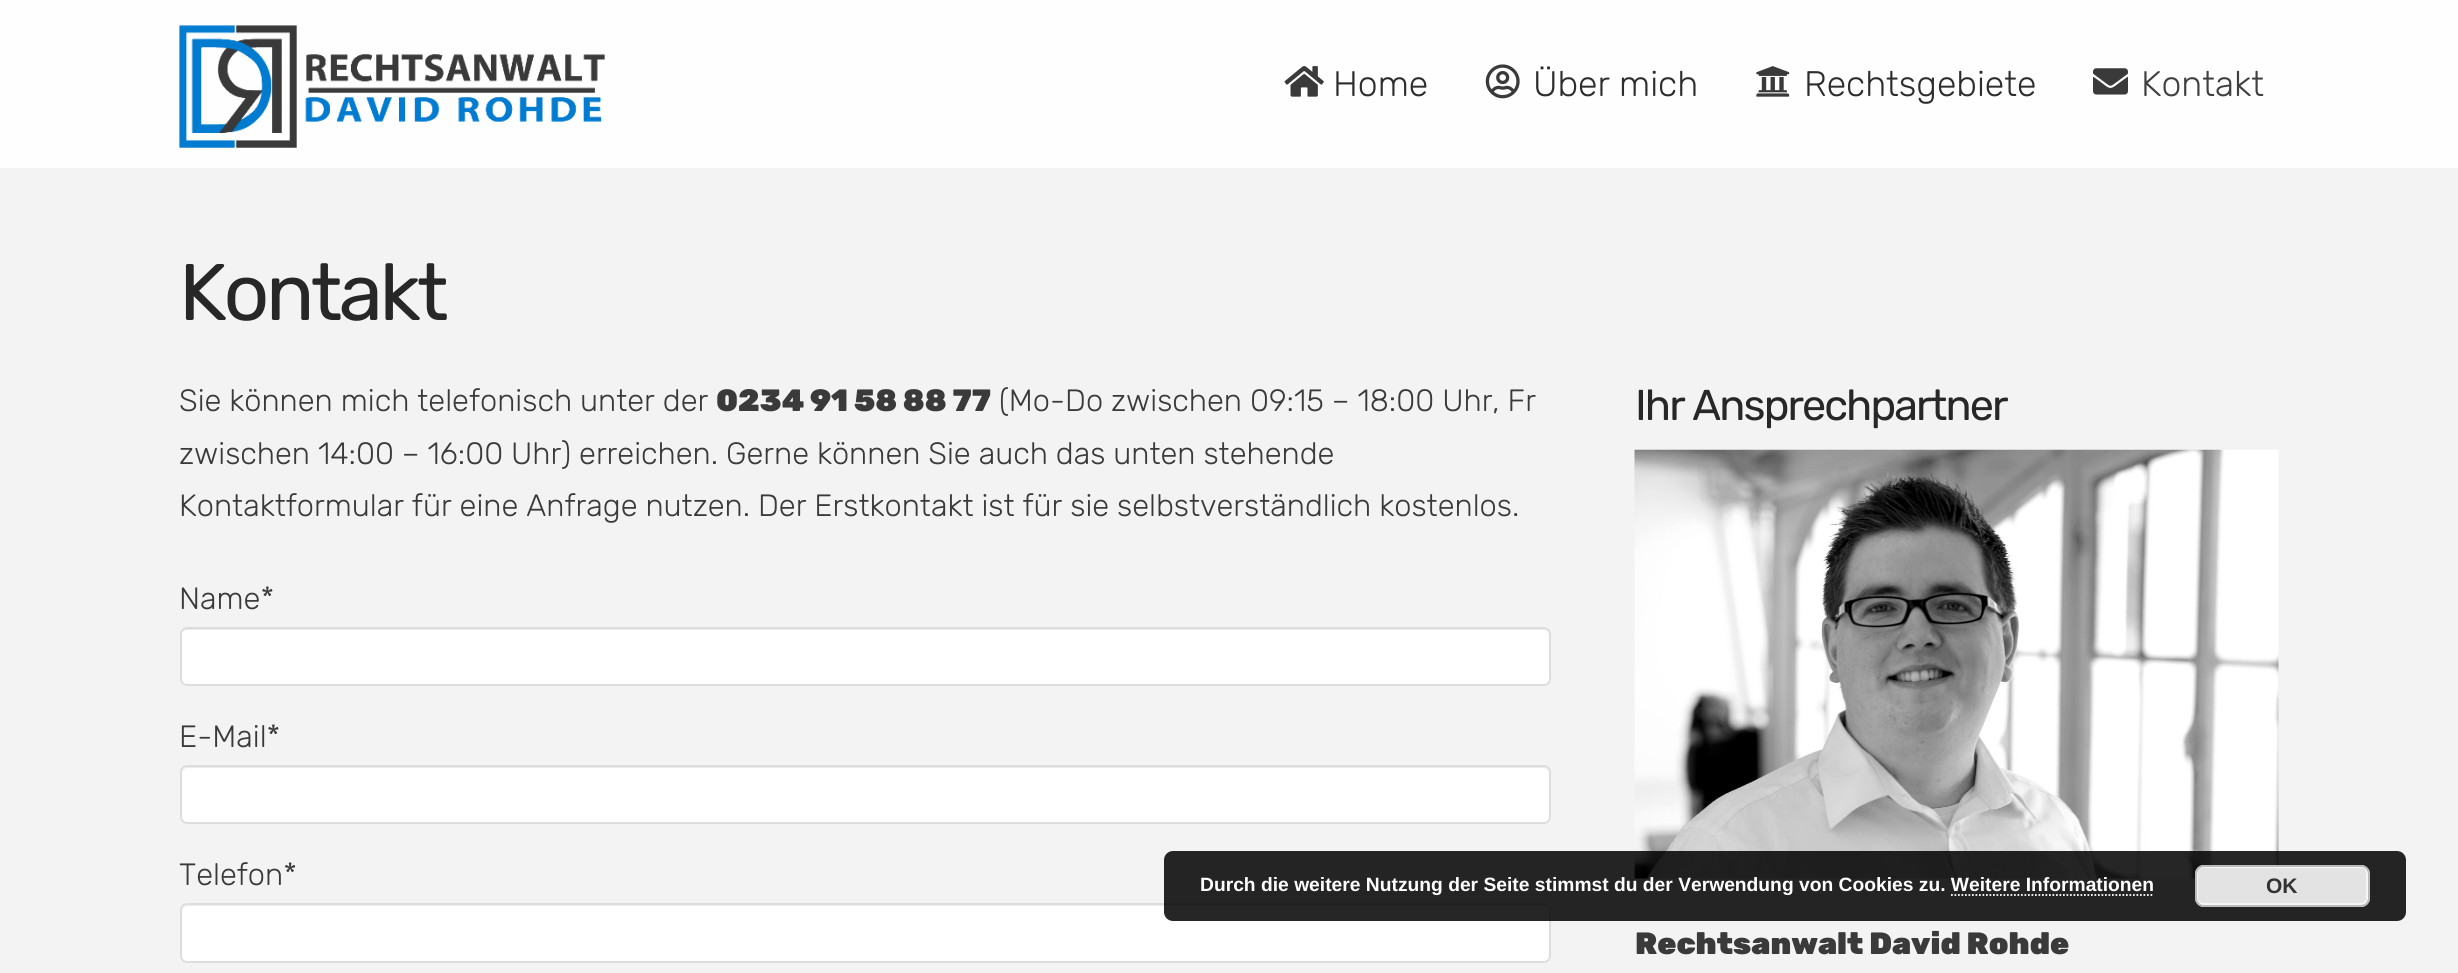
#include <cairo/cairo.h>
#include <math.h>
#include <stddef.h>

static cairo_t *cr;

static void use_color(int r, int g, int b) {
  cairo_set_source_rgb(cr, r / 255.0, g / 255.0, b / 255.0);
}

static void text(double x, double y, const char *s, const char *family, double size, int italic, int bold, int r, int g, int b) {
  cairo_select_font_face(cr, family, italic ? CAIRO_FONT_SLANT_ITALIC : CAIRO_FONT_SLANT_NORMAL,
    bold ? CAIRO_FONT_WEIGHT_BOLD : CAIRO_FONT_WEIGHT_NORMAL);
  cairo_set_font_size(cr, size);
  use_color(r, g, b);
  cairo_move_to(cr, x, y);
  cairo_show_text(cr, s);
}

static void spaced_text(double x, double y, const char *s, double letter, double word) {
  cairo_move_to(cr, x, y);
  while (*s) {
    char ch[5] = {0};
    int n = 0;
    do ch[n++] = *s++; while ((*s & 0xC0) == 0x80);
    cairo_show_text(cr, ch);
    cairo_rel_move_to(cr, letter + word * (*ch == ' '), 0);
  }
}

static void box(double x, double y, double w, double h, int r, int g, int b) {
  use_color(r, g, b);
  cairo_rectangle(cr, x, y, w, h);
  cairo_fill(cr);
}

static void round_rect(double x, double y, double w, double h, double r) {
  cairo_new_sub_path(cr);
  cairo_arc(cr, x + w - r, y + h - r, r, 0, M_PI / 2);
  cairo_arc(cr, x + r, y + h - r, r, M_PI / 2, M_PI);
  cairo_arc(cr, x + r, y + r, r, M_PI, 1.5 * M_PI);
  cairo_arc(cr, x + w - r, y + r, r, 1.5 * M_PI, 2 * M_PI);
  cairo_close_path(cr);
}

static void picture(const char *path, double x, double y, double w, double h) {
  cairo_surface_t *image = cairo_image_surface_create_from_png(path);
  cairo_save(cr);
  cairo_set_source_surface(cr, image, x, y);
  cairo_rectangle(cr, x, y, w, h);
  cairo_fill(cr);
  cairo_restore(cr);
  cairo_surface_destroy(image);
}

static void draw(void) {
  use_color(243, 243, 243);
  cairo_paint(cr);
  box(0, 0, 2458, 168, 254, 254, 254);
  picture("img_01.png", 179, 25, 426, 123);
  picture("img_02.png", 1284, 66, 40, 31);
  picture("img_03.png", 1485, 64, 35, 35);
  picture("img_04.png", 1756, 66, 34, 31);
  picture("img_05.png", 2093, 68, 35, 27);
  use_color(255, 255, 255);
  round_rect(180, 627, 1371, 59, 7);
  cairo_fill(cr);
  use_color(236, 236, 236);
  cairo_new_path(cr);
  cairo_move_to(cr, 187, 630);
  cairo_line_to(cr, 1544, 630);
  cairo_curve_to(cr, 1546, 630, 1549, 632, 1549, 635);
  cairo_curve_to(cr, 1549, 632, 1548, 628, 1544, 628);
  cairo_line_to(cr, 187, 628);
  cairo_curve_to(cr, 183, 628, 182, 632, 182, 635);
  cairo_curve_to(cr, 182, 632, 184, 630, 187, 630);
  cairo_close_path(cr);
  cairo_fill(cr);
  round_rect(181, 628, 1369, 57, 6);
  use_color(221, 221, 221);
  cairo_stroke(cr);
  use_color(255, 255, 255);
  round_rect(180, 765, 1371, 59, 7);
  cairo_fill(cr);
  use_color(236, 236, 236);
  cairo_new_path(cr);
  cairo_move_to(cr, 187, 768);
  cairo_line_to(cr, 1544, 768);
  cairo_curve_to(cr, 1546, 768, 1549, 771, 1549, 774);
  cairo_curve_to(cr, 1549, 771, 1548, 767, 1544, 767);
  cairo_line_to(cr, 187, 767);
  cairo_curve_to(cr, 183, 767, 182, 771, 182, 774);
  cairo_curve_to(cr, 182, 771, 184, 768, 187, 768);
  cairo_close_path(cr);
  cairo_fill(cr);
  round_rect(181, 766, 1369, 57, 6);
  use_color(221, 221, 221);
  cairo_stroke(cr);
  use_color(255, 255, 255);
  round_rect(180, 903, 1371, 60, 7);
  cairo_fill(cr);
  use_color(236, 236, 236);
  cairo_new_path(cr);
  cairo_move_to(cr, 187, 906);
  cairo_line_to(cr, 1544, 906);
  cairo_curve_to(cr, 1546, 906, 1549, 909, 1549, 912);
  cairo_curve_to(cr, 1549, 909, 1548, 905, 1544, 905);
  cairo_line_to(cr, 187, 905);
  cairo_curve_to(cr, 183, 905, 182, 909, 182, 912);
  cairo_curve_to(cr, 182, 909, 184, 906, 187, 906);
  cairo_close_path(cr);
  cairo_fill(cr);
  round_rect(181, 904, 1369, 58, 6);
  use_color(221, 221, 221);
  cairo_stroke(cr);
  picture("img_06.png", 1634, 449, 645, 430);
  cairo_set_source_rgba(cr, 0, 0, 0, 0.85);
  round_rect(1164, 851, 1242, 70, 9);
  cairo_fill(cr);
  use_color(227, 227, 227);
  round_rect(2195, 865, 175, 42, 9);
  cairo_fill(cr);
  round_rect(2197, 867, 170, 37, 6);
  use_color(246, 246, 246);
  cairo_stroke(cr);
  round_rect(2196, 866, 173, 40, 8);
  use_color(187, 187, 187);
  cairo_stroke(cr);
  cairo_new_path(cr);
  cairo_move_to(cr, 1951, 895);
  cairo_line_to(cr, 2154, 895);
  use_color(255, 255, 255);
  cairo_set_line_width(cr, 1.8);
  cairo_set_dash(cr, (double[]){1.75, 1.75}, 2, 0);
  cairo_stroke(cr);
  text(1333, 96, "Home", "Rubik Light", 35.5, 0, 0, 46, 45, 45);
  text(1533, 96, "Über mich", "Rubik Light", 35.5, 0, 0, 46, 45, 45);
  text(1804, 96, "Rechtsgebiete", "Rubik Light", 35.5, 0, 0, 46, 45, 45);
  text(2141, 96, "Kontakt", "Rubik Light", 35.5, 0, 0, 64, 64, 64);
  cairo_select_font_face(cr, "Rubik", CAIRO_FONT_SLANT_NORMAL, CAIRO_FONT_WEIGHT_NORMAL);
  cairo_set_font_size(cr, 80);
  use_color(39, 39, 39);
  spaced_text(179, 320, "Kontakt", -3.5, 0);
  text(179, 411, "Sie können mich telefonisch unter der", "Rubik Light", 30.8, 0, 0, 58, 58, 58);
  text(716, 411, "0234 91 58 88 77", "Rubik Black", 30.8, 0, 0, 58, 58, 58);
  text(999, 411, "(Mo-Do zwischen 09:15 – 18:00 Uhr, Fr", "Rubik Light", 30.8, 0, 0, 58, 58, 58);
  text(179, 464, "zwischen 14:00 – 16:00 Uhr) erreichen. Gerne können Sie auch das unten stehende", "Rubik Light", 30.8, 0, 0, 58, 58, 58);
  text(179, 516, "Kontaktformular für eine Anfrage nutzen. Der Erstkontakt ist für sie selbstverständlich kostenlos.", "Rubik Light", 30.8, 0, 0, 58, 58, 58);
  text(179, 609, "Name*", "Rubik Light", 30.8, 0, 0, 58, 58, 58);
  text(179, 747, "E-Mail*", "Rubik Light", 30.8, 0, 0, 58, 58, 58);
  text(179, 885, "Telefon*", "Rubik Light", 30.8, 0, 0, 58, 58, 58);
  cairo_select_font_face(cr, "Rubik", CAIRO_FONT_SLANT_NORMAL, CAIRO_FONT_WEIGHT_NORMAL);
  cairo_set_font_size(cr, 43.1);
  use_color(39, 39, 39);
  spaced_text(1635, 420, "Ihr Ansprechpartner", -1.9, 0);
  text(1635, 954, "Rechtsanwalt David Rohde", "Rubik Black", 30.8, 0, 0, 58, 58, 58);
  text(1200, 891, "Durch die weitere Nutzung der Seite stimmst du der Verwendung von Cookies zu. Weitere Informationen", "Liberation Sans", 19.25, 0, 1, 255, 255, 255);
  text(2266, 893, "OK", "Liberation Sans", 21, 0, 1, 51, 51, 51);
}

int main(void) {
  cairo_surface_t *surface = cairo_image_surface_create(CAIRO_FORMAT_RGB24, 2458, 973);
  cr = cairo_create(surface);
  cairo_font_options_t *options = cairo_font_options_create();
  cairo_font_options_set_hint_metrics(options, CAIRO_HINT_METRICS_OFF);
  cairo_font_options_set_hint_style(options, CAIRO_HINT_STYLE_NONE);
  cairo_set_font_options(cr, options);
  cairo_set_miter_limit(cr, 4);
  draw();
  cairo_surface_write_to_png(surface, "out.png");
  cairo_font_options_destroy(options);
  cairo_destroy(cr);
  cairo_surface_destroy(surface);
  return 0;
}
